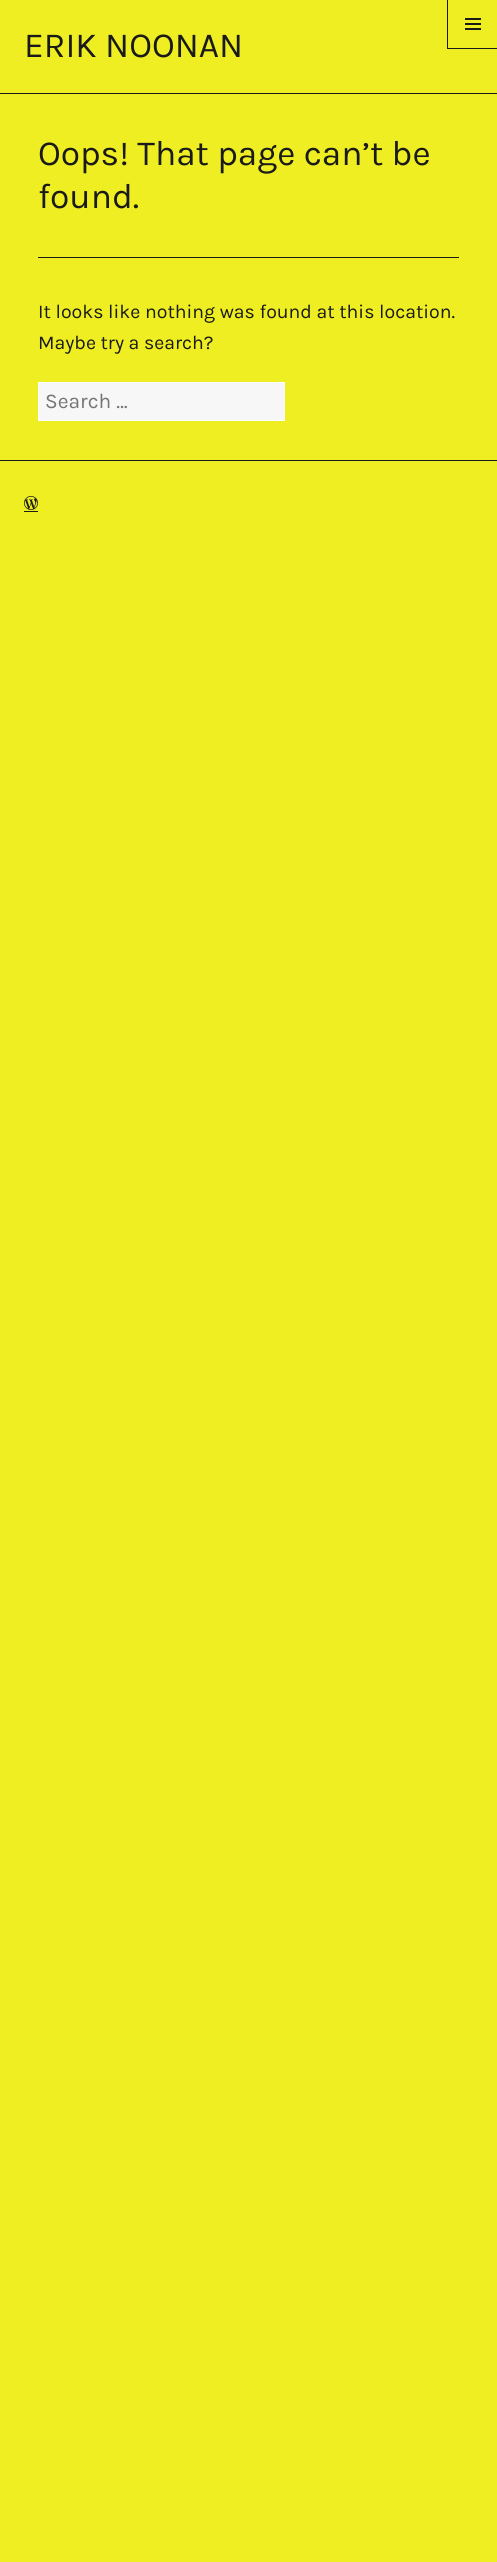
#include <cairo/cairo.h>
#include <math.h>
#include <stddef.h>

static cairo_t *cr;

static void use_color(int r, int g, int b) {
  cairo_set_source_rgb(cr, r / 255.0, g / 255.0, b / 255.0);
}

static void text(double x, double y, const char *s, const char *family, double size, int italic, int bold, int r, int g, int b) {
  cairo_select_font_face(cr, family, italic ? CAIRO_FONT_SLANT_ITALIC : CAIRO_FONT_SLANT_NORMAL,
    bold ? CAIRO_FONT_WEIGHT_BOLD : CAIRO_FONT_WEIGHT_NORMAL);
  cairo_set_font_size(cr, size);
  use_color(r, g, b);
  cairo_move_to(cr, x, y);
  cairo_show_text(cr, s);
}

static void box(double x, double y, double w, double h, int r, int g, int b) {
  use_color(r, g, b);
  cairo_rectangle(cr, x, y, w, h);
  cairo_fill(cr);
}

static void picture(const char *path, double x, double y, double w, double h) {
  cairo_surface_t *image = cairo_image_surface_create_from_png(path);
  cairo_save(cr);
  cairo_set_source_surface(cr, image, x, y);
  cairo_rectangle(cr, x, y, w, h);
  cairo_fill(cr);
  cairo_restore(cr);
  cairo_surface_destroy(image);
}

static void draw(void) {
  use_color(238, 238, 34);
  cairo_paint(cr);
  box(0, 93, 497, 1, 26, 26, 26);
  box(447, 48, 50, 1, 26, 26, 26);
  box(447, 0, 1, 49, 26, 26, 26);
  picture("img_01.png", 465, 18, 16, 12);
  box(38, 257, 421, 1, 26, 26, 26);
  use_color(247, 247, 247);
  cairo_rectangle(cr, 38.5, 382.5, 246, 38);
  cairo_fill_preserve(cr);
  use_color(255, 255, 255);
  cairo_set_line_width(cr, 1);
  cairo_stroke(cr);
  box(0, 460, 497, 1, 26, 26, 26);
  picture("img_02.png", 24, 496, 14, 14);
  box(24, 511, 14, 1, 26, 26, 26);
  text(24, 57, "ERIK NOONAN", "Karla", 35.25, 0, 0, 26, 26, 26);
  text(38, 165, "Oops! That page can’t be", "Karla", 35.25, 0, 0, 26, 26, 26);
  text(38, 208, "found.", "Karla", 35.25, 0, 0, 26, 26, 26);
  text(38, 318, "It looks like nothing was found at this location.", "Karla", 19.5, 0, 0, 26, 26, 26);
  text(38, 349, "Maybe try a search?", "Karla", 19.5, 0, 0, 26, 26, 26);
  text(45, 408, "Search …", "Karla", 21, 0, 0, 117, 117, 117);
}

int main(void) {
  cairo_surface_t *surface = cairo_image_surface_create(CAIRO_FORMAT_RGB24, 497, 2562);
  cr = cairo_create(surface);
  cairo_font_options_t *options = cairo_font_options_create();
  cairo_font_options_set_hint_metrics(options, CAIRO_HINT_METRICS_OFF);
  cairo_font_options_set_hint_style(options, CAIRO_HINT_STYLE_NONE);
  cairo_set_font_options(cr, options);
  cairo_set_miter_limit(cr, 4);
  draw();
  cairo_surface_write_to_png(surface, "out.png");
  cairo_font_options_destroy(options);
  cairo_destroy(cr);
  cairo_surface_destroy(surface);
  return 0;
}
